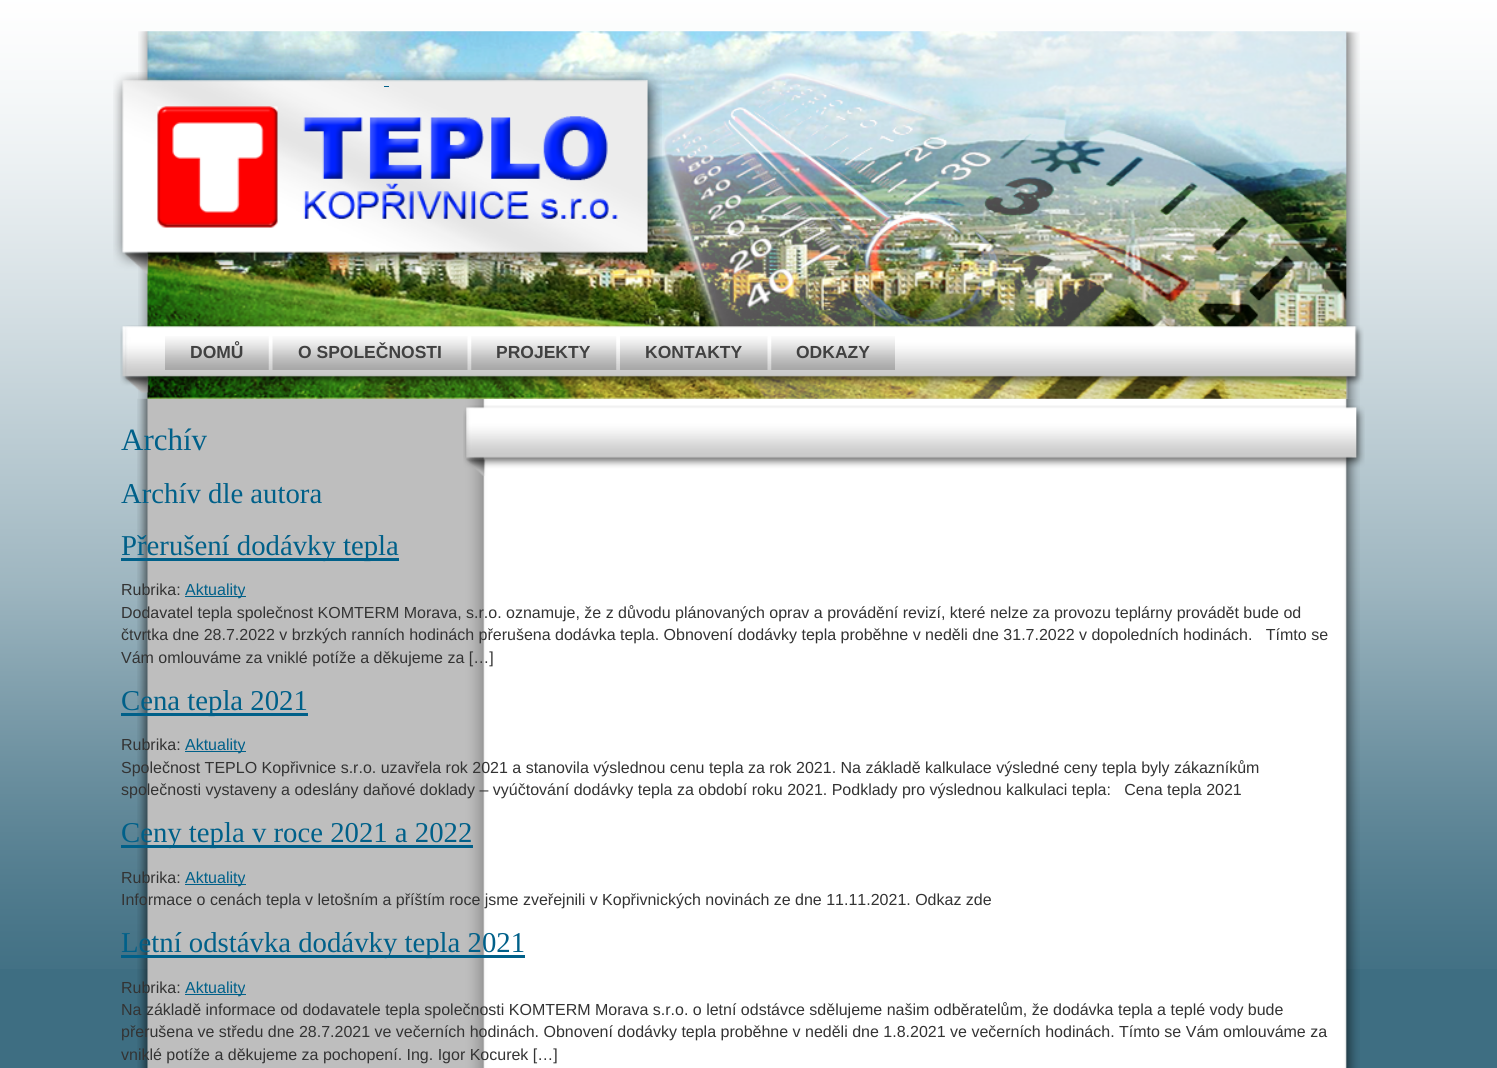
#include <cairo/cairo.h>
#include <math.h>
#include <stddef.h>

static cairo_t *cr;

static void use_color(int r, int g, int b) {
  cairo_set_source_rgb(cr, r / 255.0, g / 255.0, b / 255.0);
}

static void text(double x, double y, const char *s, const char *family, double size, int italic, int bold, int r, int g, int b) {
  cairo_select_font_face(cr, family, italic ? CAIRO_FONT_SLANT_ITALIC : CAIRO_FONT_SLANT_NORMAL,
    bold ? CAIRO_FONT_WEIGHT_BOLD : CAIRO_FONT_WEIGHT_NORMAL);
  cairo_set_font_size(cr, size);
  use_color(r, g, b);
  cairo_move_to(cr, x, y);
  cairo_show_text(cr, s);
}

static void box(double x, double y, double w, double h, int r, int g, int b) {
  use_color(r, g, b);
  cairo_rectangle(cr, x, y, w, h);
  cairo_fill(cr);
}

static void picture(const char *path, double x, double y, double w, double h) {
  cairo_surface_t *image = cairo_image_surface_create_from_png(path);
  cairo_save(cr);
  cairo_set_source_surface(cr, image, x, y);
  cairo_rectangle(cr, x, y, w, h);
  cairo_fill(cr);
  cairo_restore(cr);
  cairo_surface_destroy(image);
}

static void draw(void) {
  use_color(62, 110, 130);
  cairo_paint(cr);
  picture("img_01.png", 0, 0, 1497, 969);
  picture("img_11.png", 137, 398, 1223, 670);
  picture("img_02.png", 138, 31, 1222, 368);
  picture("img_03.png", 113, 72, 549, 202);
  box(384, 86, 5, 1, 0, 96, 137);
  picture("img_04.png", 120, 325, 1244, 68);
  picture("img_05.png", 165, 336, 104, 34);
  picture("img_06.png", 272, 336, 196, 34);
  picture("img_07.png", 471, 336, 146, 34);
  picture("img_08.png", 620, 336, 148, 34);
  picture("img_09.png", 771, 336, 124, 34);
  picture("img_10.png", 463, 405, 902, 71);
  box(121, 558, 278, 3, 0, 96, 137);
  box(185, 596, 61, 1, 0, 96, 137);
  box(121, 713, 187, 3, 0, 96, 137);
  box(185, 751, 61, 1, 0, 96, 137);
  box(121, 845, 352, 3, 0, 96, 137);
  box(185, 884, 61, 1, 0, 96, 137);
  box(121, 955, 404, 3, 0, 96, 137);
  box(185, 994, 61, 1, 0, 96, 137);
  text(190, 358, "DOMŮ", "Liberation Sans", 17.5, 0, 1, 65, 65, 65);
  text(298, 358, "O SPOLEČNOSTI", "Liberation Sans", 17.5, 0, 1, 65, 65, 65);
  text(496, 358, "PROJEKTY", "Liberation Sans", 17.5, 0, 1, 65, 65, 65);
  text(645, 358, "KONTAKTY", "Liberation Sans", 17.5, 0, 1, 65, 65, 65);
  text(796, 358, "ODKAZY", "Liberation Sans", 17.5, 0, 1, 65, 65, 65);
  text(121, 450, "Archív", "Liberation Serif", 31, 0, 0, 0, 96, 137);
  text(121, 503, "Archív dle autora", "Liberation Serif", 28.75, 0, 0, 0, 96, 137);
  text(121, 555, "Přerušení dodávky tepla", "Liberation Serif", 28.75, 0, 0, 0, 96, 137);
  text(121, 595, "Rubrika:", "Liberation Sans", 16, 0, 0, 51, 51, 51);
  text(185, 595, "Aktuality", "Liberation Sans", 16, 0, 0, 0, 96, 137);
  text(121, 618, "Dodavatel tepla společnost KOMTERM Morava, s.r.o. oznamuje, že z důvodu plánovaných oprav a provádění revizí, které nelze za provozu teplárny provádět bude od", "Liberation Sans", 16, 0, 0, 51, 51, 51);
  text(121, 640, "čtvrtka dne 28.7.2022 v brzkých ranních hodinách přerušena dodávka tepla. Obnovení dodávky tepla proběhne v neděli dne 31.7.2022 v dopoledních hodinách.   Tímto se", "Liberation Sans", 16, 0, 0, 51, 51, 51);
  text(121, 663, "Vám omlouváme za vniklé potíže a děkujeme za […]", "Liberation Sans", 16, 0, 0, 51, 51, 51);
  text(121, 710, "Cena tepla 2021", "Liberation Serif", 28.75, 0, 0, 0, 96, 137);
  text(121, 750, "Rubrika:", "Liberation Sans", 16, 0, 0, 51, 51, 51);
  text(185, 750, "Aktuality", "Liberation Sans", 16, 0, 0, 0, 96, 137);
  text(121, 773, "Společnost TEPLO Kopřivnice s.r.o. uzavřela rok 2021 a stanovila výslednou cenu tepla za rok 2021. Na základě kalkulace výsledné ceny tepla byly zákazníkům", "Liberation Sans", 16, 0, 0, 51, 51, 51);
  text(121, 795, "společnosti vystaveny a odeslány daňové doklady – vyúčtování dodávky tepla za období roku 2021. Podklady pro výslednou kalkulaci tepla:   Cena tepla 2021", "Liberation Sans", 16, 0, 0, 51, 51, 51);
  text(121, 842, "Ceny tepla v roce 2021 a 2022", "Liberation Serif", 28.75, 0, 0, 0, 96, 137);
  text(121, 883, "Rubrika:", "Liberation Sans", 16, 0, 0, 51, 51, 51);
  text(185, 883, "Aktuality", "Liberation Sans", 16, 0, 0, 0, 96, 137);
  text(121, 905, "Informace o cenách tepla v letošním a příštím roce jsme zveřejnili v Kopřivnických novinách ze dne 11.11.2021. Odkaz zde", "Liberation Sans", 16, 0, 0, 51, 51, 51);
  text(121, 952, "Letní odstávka dodávky tepla 2021", "Liberation Serif", 28.75, 0, 0, 0, 96, 137);
  text(121, 993, "Rubrika:", "Liberation Sans", 16, 0, 0, 51, 51, 51);
  text(185, 993, "Aktuality", "Liberation Sans", 16, 0, 0, 0, 96, 137);
  text(121, 1015, "Na základě informace od dodavatele tepla společnosti KOMTERM Morava s.r.o. o letní odstávce sdělujeme našim odběratelům, že dodávka tepla a teplé vody bude", "Liberation Sans", 16, 0, 0, 51, 51, 51);
  text(121, 1037, "přerušena ve středu dne 28.7.2021 ve večerních hodinách. Obnovení dodávky tepla proběhne v neděli dne 1.8.2021 ve večerních hodinách. Tímto se Vám omlouváme za", "Liberation Sans", 16, 0, 0, 51, 51, 51);
  text(121, 1060, "vniklé potíže a děkujeme za pochopení. Ing. Igor Kocurek […]", "Liberation Sans", 16, 0, 0, 51, 51, 51);
}

int main(void) {
  cairo_surface_t *surface = cairo_image_surface_create(CAIRO_FORMAT_RGB24, 1497, 1068);
  cr = cairo_create(surface);
  cairo_font_options_t *options = cairo_font_options_create();
  cairo_font_options_set_hint_metrics(options, CAIRO_HINT_METRICS_OFF);
  cairo_font_options_set_hint_style(options, CAIRO_HINT_STYLE_NONE);
  cairo_set_font_options(cr, options);
  cairo_set_miter_limit(cr, 4);
  draw();
  cairo_surface_write_to_png(surface, "out.png");
  cairo_font_options_destroy(options);
  cairo_destroy(cr);
  cairo_surface_destroy(surface);
  return 0;
}
